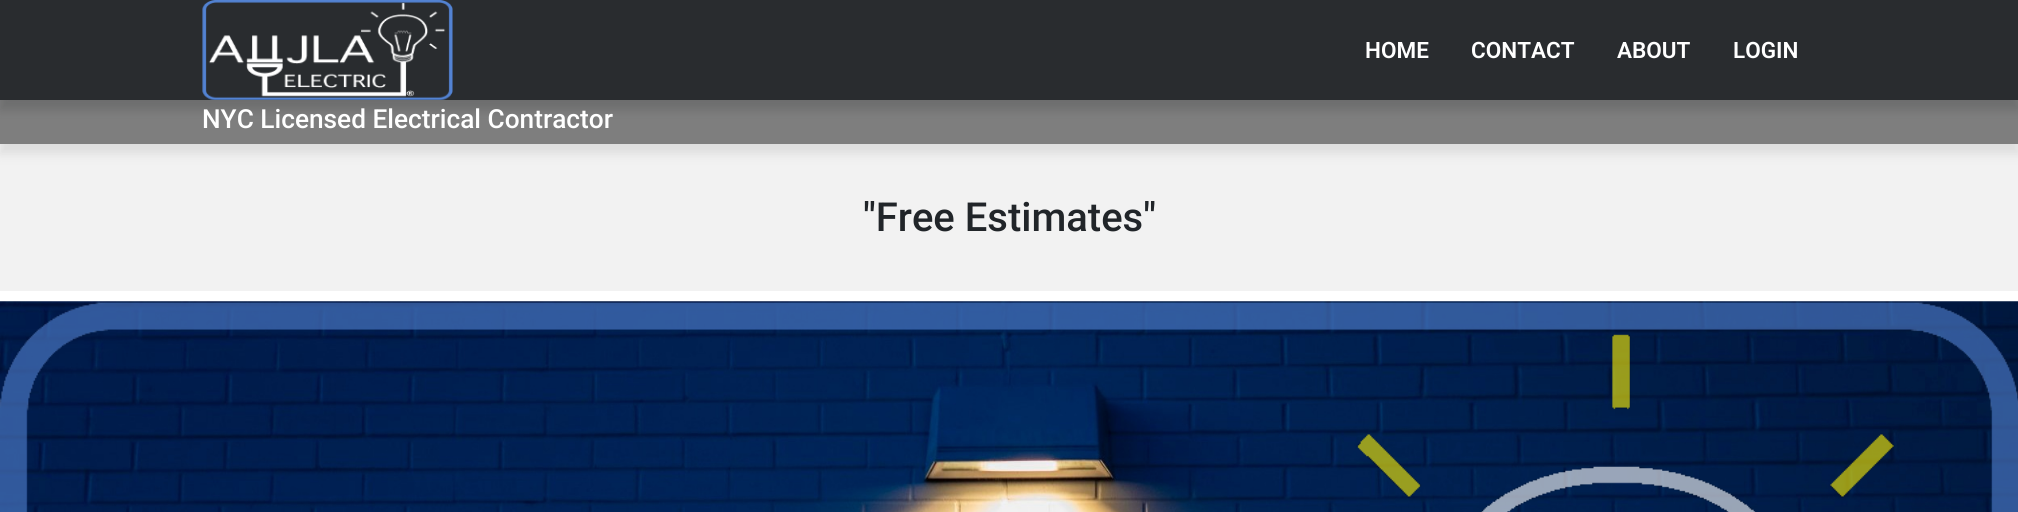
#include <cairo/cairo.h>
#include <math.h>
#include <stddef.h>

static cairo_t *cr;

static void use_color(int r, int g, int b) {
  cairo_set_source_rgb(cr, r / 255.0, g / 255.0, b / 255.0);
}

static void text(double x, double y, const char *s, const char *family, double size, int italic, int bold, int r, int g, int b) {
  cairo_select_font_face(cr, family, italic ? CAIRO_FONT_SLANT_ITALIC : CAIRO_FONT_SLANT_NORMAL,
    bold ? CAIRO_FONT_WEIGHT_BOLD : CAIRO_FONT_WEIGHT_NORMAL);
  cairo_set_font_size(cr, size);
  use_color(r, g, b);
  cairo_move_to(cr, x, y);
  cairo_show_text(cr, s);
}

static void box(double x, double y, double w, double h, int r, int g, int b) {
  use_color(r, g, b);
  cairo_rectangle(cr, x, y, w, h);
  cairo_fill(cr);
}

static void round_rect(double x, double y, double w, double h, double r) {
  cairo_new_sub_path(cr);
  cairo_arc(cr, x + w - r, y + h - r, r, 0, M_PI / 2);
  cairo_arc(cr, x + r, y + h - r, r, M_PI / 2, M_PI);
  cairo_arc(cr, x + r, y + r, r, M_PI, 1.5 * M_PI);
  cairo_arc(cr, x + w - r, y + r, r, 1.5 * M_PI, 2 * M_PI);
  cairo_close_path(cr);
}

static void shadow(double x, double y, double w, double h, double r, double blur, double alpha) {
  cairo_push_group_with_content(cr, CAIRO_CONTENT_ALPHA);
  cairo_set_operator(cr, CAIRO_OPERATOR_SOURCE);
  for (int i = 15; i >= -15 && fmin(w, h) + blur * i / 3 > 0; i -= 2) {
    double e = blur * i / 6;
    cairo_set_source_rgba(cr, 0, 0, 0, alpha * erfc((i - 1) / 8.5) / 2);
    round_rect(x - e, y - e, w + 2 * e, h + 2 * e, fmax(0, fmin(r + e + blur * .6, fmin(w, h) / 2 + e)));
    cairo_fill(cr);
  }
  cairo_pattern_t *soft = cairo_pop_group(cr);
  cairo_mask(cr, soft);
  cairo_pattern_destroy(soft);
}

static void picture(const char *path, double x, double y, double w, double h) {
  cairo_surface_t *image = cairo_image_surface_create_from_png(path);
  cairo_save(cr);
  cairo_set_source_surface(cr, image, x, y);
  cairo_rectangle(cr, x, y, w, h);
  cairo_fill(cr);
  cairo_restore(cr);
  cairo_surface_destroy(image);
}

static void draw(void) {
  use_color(255, 255, 255);
  cairo_paint(cr);
  use_color(126, 126, 126);
  shadow(0, 110, 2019, 44, 0, 5, 0.2);
  box(0, 100, 2018, 44, 126, 126, 126);
  use_color(41, 44, 47);
  shadow(0, 10, 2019, 100, 0, 5, 0.2);
  box(0, 0, 2018, 100, 41, 44, 47);
  picture("img_01.png", 202, 0, 251, 100);
  cairo_set_source_rgba(cr, 0.753, 0.753, 0.753, 0.2);
  cairo_rectangle(cr, 0, 144, 2018, 147);
  cairo_fill(cr);
  picture("img_02.png", 0, 301, 2018, 211);
  picture("img_03.png", 0, 302, 2018, 210);
  text(1365, 58, "HOME", "Roboto SemiBold", 22.5, 0, 0, 255, 255, 255);
  text(1471, 58, "CONTACT", "Roboto SemiBold", 22.5, 0, 0, 255, 255, 255);
  text(1617, 58, "ABOUT", "Roboto SemiBold", 22.5, 0, 0, 255, 255, 255);
  text(1733, 58, "LOGIN", "Roboto SemiBold", 22.5, 0, 0, 255, 255, 255);
  text(202, 128, "NYC Licensed Electrical Contractor", "Roboto Medium", 26.25, 0, 0, 255, 255, 255);
  text(863, 231, "\"Free Estimates\"", "Roboto Medium", 40, 0, 0, 33, 37, 41);
}

int main(void) {
  cairo_surface_t *surface = cairo_image_surface_create(CAIRO_FORMAT_RGB24, 2018, 512);
  cr = cairo_create(surface);
  cairo_font_options_t *options = cairo_font_options_create();
  cairo_font_options_set_hint_metrics(options, CAIRO_HINT_METRICS_OFF);
  cairo_font_options_set_hint_style(options, CAIRO_HINT_STYLE_NONE);
  cairo_set_font_options(cr, options);
  cairo_set_miter_limit(cr, 4);
  draw();
  cairo_surface_write_to_png(surface, "out.png");
  cairo_font_options_destroy(options);
  cairo_destroy(cr);
  cairo_surface_destroy(surface);
  return 0;
}
